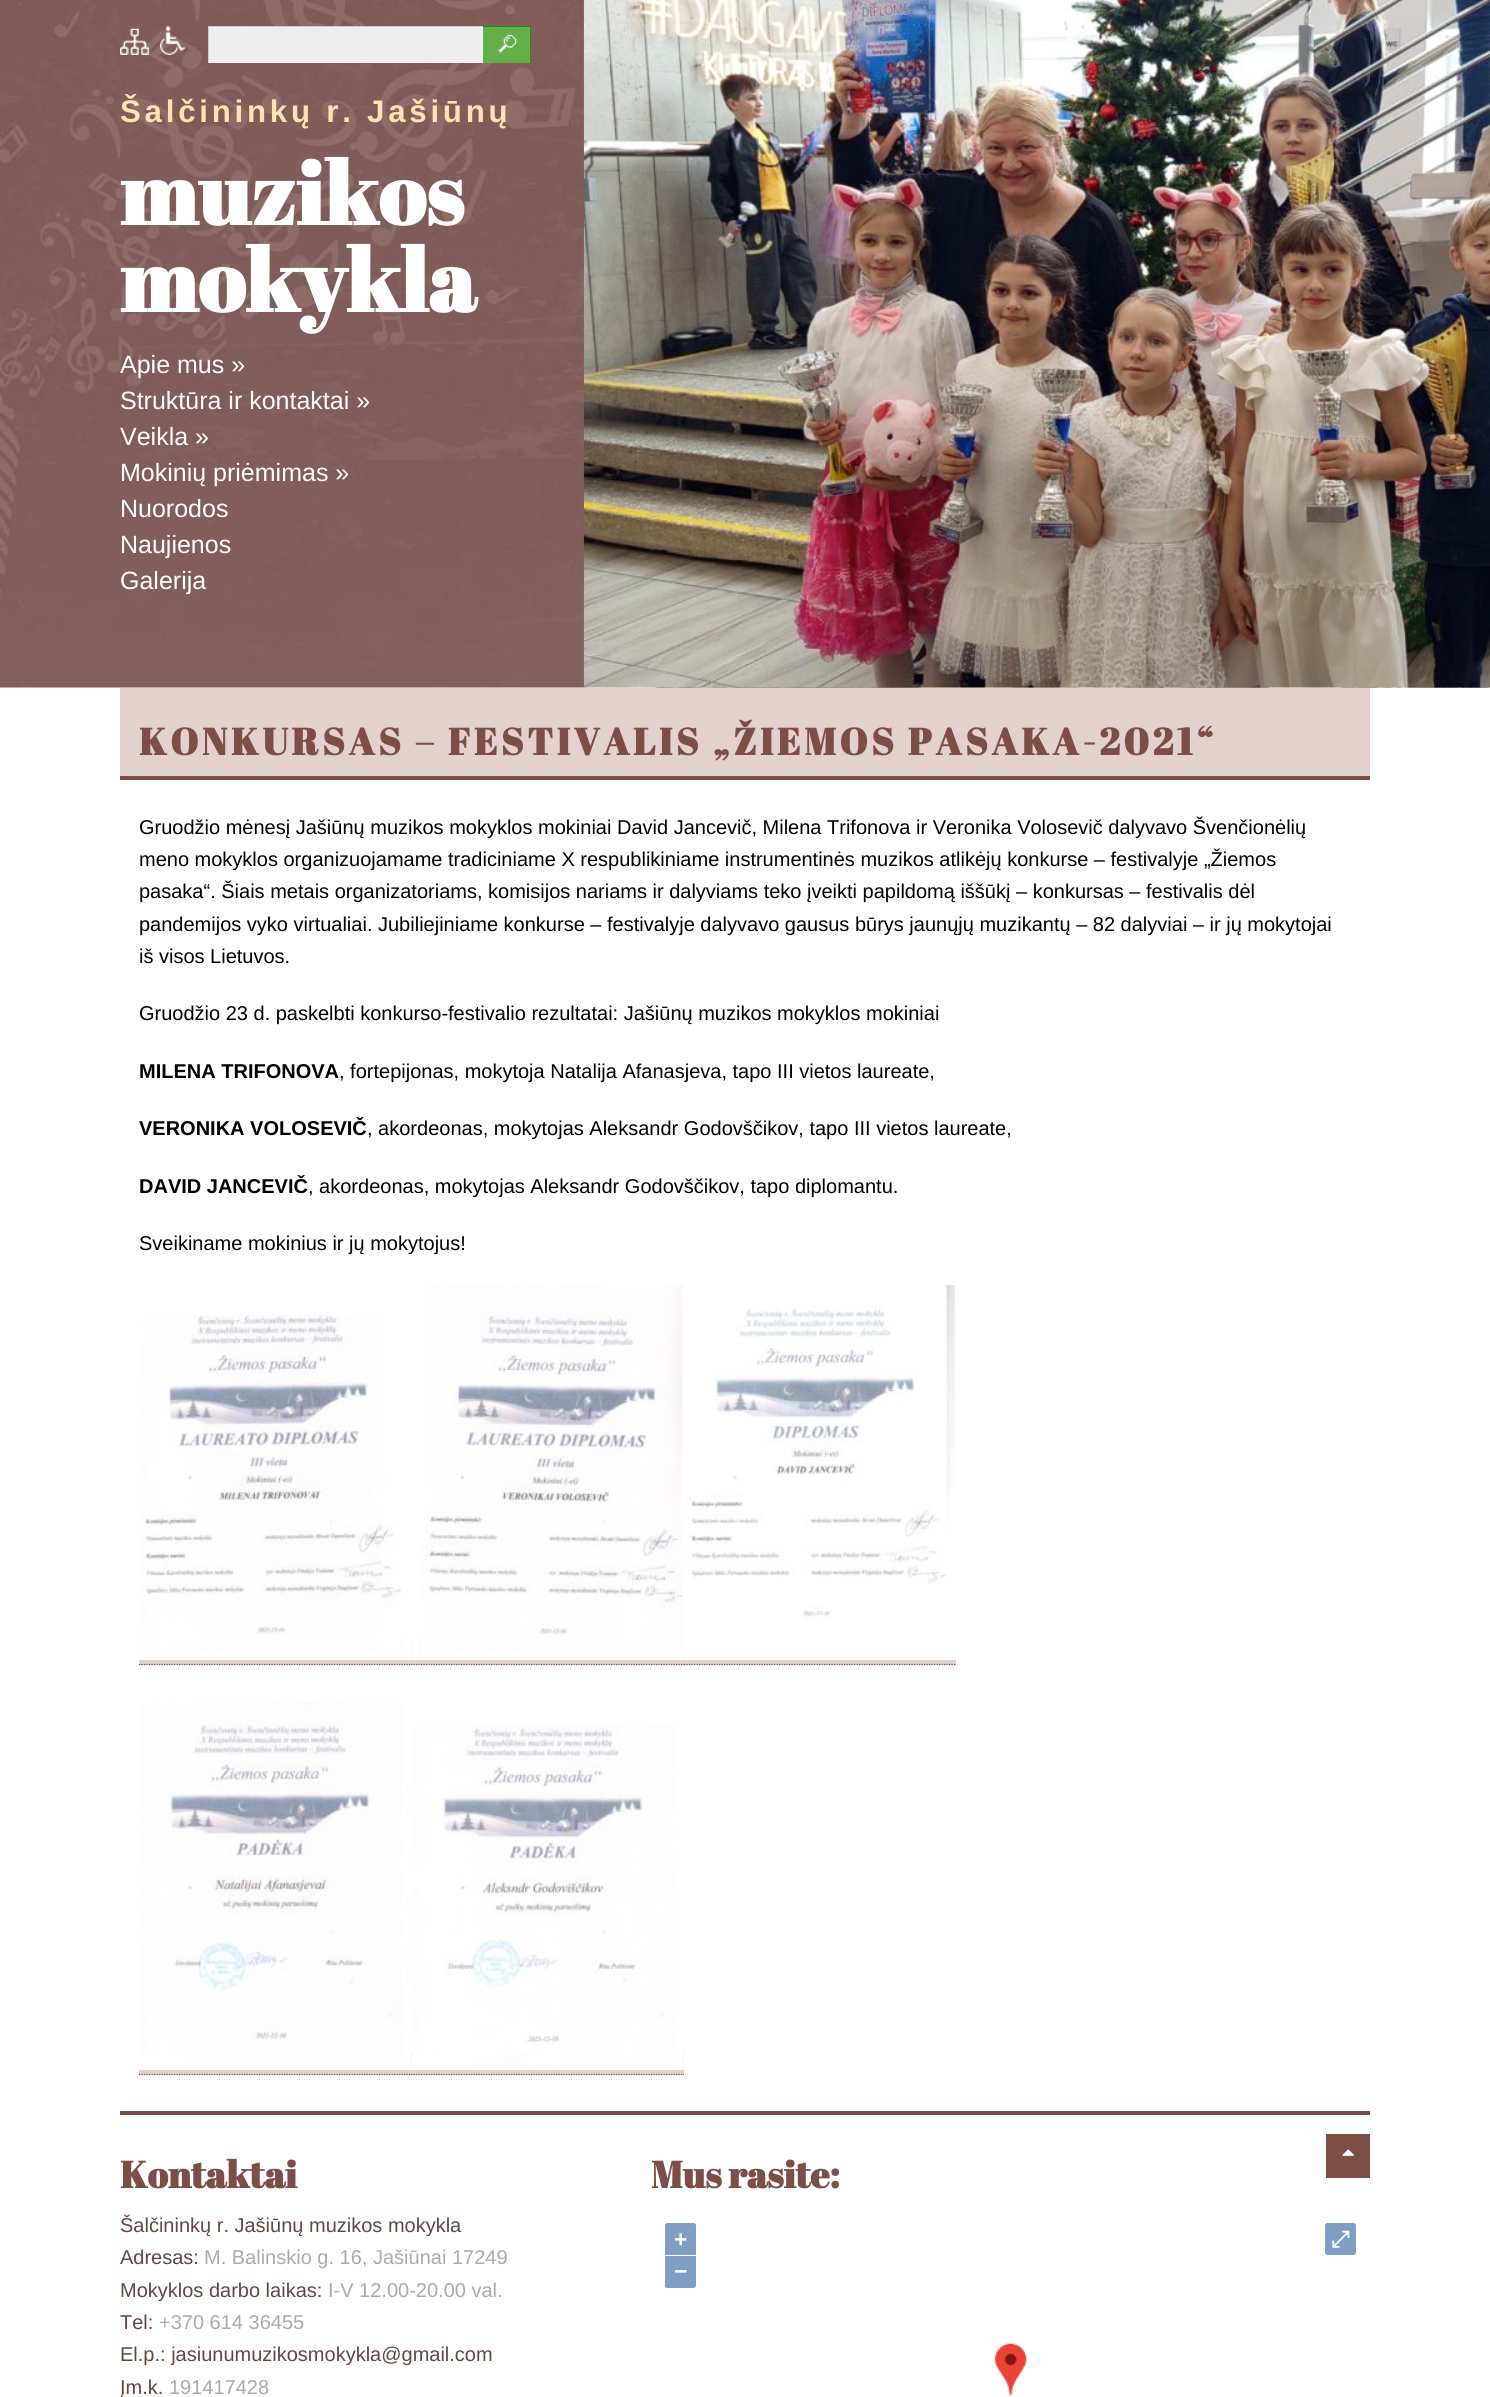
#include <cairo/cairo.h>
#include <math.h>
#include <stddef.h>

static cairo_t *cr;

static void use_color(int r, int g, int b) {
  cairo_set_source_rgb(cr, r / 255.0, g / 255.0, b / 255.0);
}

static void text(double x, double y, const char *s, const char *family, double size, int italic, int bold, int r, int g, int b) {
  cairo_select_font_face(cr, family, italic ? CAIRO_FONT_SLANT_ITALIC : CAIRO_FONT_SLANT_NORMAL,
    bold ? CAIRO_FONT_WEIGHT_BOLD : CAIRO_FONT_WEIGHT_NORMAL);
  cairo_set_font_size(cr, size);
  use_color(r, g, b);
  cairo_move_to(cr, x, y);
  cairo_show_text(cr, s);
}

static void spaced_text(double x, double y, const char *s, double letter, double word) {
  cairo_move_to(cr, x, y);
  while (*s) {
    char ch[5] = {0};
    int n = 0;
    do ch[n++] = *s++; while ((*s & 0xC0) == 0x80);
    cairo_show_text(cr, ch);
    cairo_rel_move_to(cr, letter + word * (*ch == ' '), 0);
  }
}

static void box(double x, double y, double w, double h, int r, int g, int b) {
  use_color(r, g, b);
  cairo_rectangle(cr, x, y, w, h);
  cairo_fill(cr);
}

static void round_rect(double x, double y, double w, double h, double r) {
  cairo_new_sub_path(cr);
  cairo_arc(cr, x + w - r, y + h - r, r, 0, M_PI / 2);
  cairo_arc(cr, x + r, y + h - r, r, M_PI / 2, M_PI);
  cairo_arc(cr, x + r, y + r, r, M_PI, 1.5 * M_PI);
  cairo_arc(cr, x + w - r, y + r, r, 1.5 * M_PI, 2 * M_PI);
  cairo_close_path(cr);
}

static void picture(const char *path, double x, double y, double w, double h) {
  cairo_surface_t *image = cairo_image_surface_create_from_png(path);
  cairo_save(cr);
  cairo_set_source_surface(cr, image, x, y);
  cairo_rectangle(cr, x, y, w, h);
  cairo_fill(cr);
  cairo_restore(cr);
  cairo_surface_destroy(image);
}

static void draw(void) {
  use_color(255, 255, 255);
  cairo_paint(cr);
  picture("img_01.png", 0, 0, 1490, 688);
  picture("img_02.png", 120, 28, 29, 27);
  picture("img_03.png", 160, 26, 25, 29);
  box(209, 27, 274, 36, 238, 238, 238);
  box(208, 26, 275, 1, 204, 204, 204);
  box(208, 26, 1, 37, 204, 204, 204);
  box(483, 27, 47, 36, 99, 176, 73);
  picture("img_04.png", 498, 34, 19, 19);
  box(483, 26, 48, 1, 45, 136, 14);
  box(530, 26, 1, 37, 45, 136, 14);
  picture("img_05.png", 583, 0, 907, 688);
  box(120, 2111, 1250, 4, 124, 78, 70);
  box(120, 688, 1250, 88, 227, 209, 206);
  box(120, 776, 1250, 4, 124, 78, 70);
  picture("img_06.png", 139, 1315, 272, 345);
  box(411, 1643, 273, 22, 227, 209, 206);
  picture("img_07.png", 411, 1285, 273, 375);
  picture("img_08.png", 684, 1285, 272, 375);
  box(139, 1660, 272, 5, 227, 209, 206);
  box(684, 1660, 272, 5, 227, 209, 206);
  cairo_new_path(cr);
  cairo_move_to(cr, 139, 1664.5);
  cairo_line_to(cr, 411, 1664.5);
  use_color(124, 78, 70);
  cairo_set_line_width(cr, 1.2);
  cairo_set_dash(cr, (double[]){1.25, 1.25}, 2, 0);
  cairo_stroke(cr);
  cairo_new_path(cr);
  cairo_move_to(cr, 411, 1664.5);
  cairo_line_to(cr, 684, 1664.5);
  cairo_stroke(cr);
  cairo_new_path(cr);
  cairo_move_to(cr, 684, 1664.5);
  cairo_line_to(cr, 956, 1664.5);
  cairo_stroke(cr);
  picture("img_09.png", 139, 1702, 272, 368);
  box(411, 2053, 273, 22, 227, 209, 206);
  picture("img_10.png", 411, 1724, 273, 346);
  box(139, 2070, 272, 5, 227, 209, 206);
  cairo_new_path(cr);
  cairo_move_to(cr, 139, 2074.5);
  cairo_line_to(cr, 411, 2074.5);
  use_color(124, 78, 70);
  cairo_stroke(cr);
  cairo_new_path(cr);
  cairo_move_to(cr, 411, 2074.5);
  cairo_line_to(cr, 684, 2074.5);
  cairo_stroke(cr);
  box(1326, 2134, 44, 44, 124, 78, 70);
  picture("img_11.png", 1342, 2149, 12, 7);
  use_color(128, 158, 196);
  cairo_new_path(cr);
  cairo_move_to(cr, 667.5, 2223);
  cairo_line_to(cr, 693.5, 2223);
  cairo_curve_to(cr, 695, 2223, 696, 2224, 696, 2225.5);
  cairo_line_to(cr, 696, 2255);
  cairo_line_to(cr, 665, 2255);
  cairo_line_to(cr, 665, 2225.5);
  cairo_curve_to(cr, 665, 2224, 666, 2223, 667.5, 2223);
  cairo_close_path(cr);
  cairo_fill(cr);
  cairo_new_path(cr);
  cairo_move_to(cr, 665, 2256);
  cairo_line_to(cr, 696, 2256);
  cairo_line_to(cr, 696, 2285.5);
  cairo_curve_to(cr, 696, 2287, 695, 2288, 693.5, 2288);
  cairo_line_to(cr, 667.5, 2288);
  cairo_curve_to(cr, 666, 2288, 665, 2287, 665, 2285.5);
  cairo_close_path(cr);
  cairo_fill(cr);
  round_rect(1325, 2223, 31, 32, 2.5);
  cairo_fill(cr);
  picture("img_12.png", 994, 2342, 34, 54);
  cairo_select_font_face(cr, "Liberation Sans", CAIRO_FONT_SLANT_NORMAL, CAIRO_FONT_WEIGHT_BOLD);
  cairo_set_font_size(cr, 31.25);
  use_color(255, 225, 178);
  spaced_text(120, 122, "Šalčininkų r. Jašiūnų", 3.75, 0);
  text(120, 225, "muzikos", "Abril Fatface", 87.5, 0, 1, 255, 255, 255);
  text(120, 312, "mokykla", "Abril Fatface", 87.5, 0, 1, 255, 255, 255);
  text(120, 373, "Apie mus »", "Liberation Sans", 25, 0, 0, 255, 255, 255);
  text(120, 409, "Struktūra ir kontaktai »", "Liberation Sans", 25, 0, 0, 255, 255, 255);
  text(120, 445, "Veikla »", "Liberation Sans", 25, 0, 0, 255, 255, 255);
  text(120, 481, "Mokinių priėmimas »", "Liberation Sans", 25, 0, 0, 255, 255, 255);
  text(120, 517, "Nuorodos", "Liberation Sans", 25, 0, 0, 255, 255, 255);
  text(120, 553, "Naujienos", "Liberation Sans", 25, 0, 0, 255, 255, 255);
  text(120, 589, "Galerija", "Liberation Sans", 25, 0, 0, 255, 255, 255);
  cairo_select_font_face(cr, "Abril Fatface", CAIRO_FONT_SLANT_NORMAL, CAIRO_FONT_WEIGHT_BOLD);
  cairo_set_font_size(cr, 37.5);
  use_color(124, 78, 70);
  spaced_text(139, 755, "KONKURSAS – FESTIVALIS „ŽIEMOS PASAKA-2021“", 3.75, 0);
  text(139, 834, "Gruodžio mėnesį Jašiūnų muzikos mokyklos mokiniai David Jancevič, Milena Trifonova ir Veronika Volosevič dalyvavo Švenčionėlių", "Liberation Sans", 20, 0, 0, 0, 0, 0);
  text(139, 866, "meno mokyklos organizuojamame tradiciniame X respublikiniame instrumentinės muzikos atlikėjų konkurse – festivalyje „Žiemos", "Liberation Sans", 20, 0, 0, 0, 0, 0);
  text(139, 898, "pasaka“. Šiais metais organizatoriams, komisijos nariams ir dalyviams teko įveikti papildomą iššūkį – konkursas – festivalis dėl", "Liberation Sans", 20, 0, 0, 0, 0, 0);
  text(139, 931, "pandemijos vyko virtualiai. Jubiliejiniame konkurse – festivalyje dalyvavo gausus būrys jaunųjų muzikantų – 82 dalyviai – ir jų mokytojai", "Liberation Sans", 20, 0, 0, 0, 0, 0);
  text(139, 963, "iš visos Lietuvos.", "Liberation Sans", 20, 0, 0, 0, 0, 0);
  text(139, 1020, "Gruodžio 23 d. paskelbti konkurso-festivalio rezultatai: Jašiūnų muzikos mokyklos mokiniai", "Liberation Sans", 20, 0, 0, 0, 0, 0);
  text(139, 1078, "MILENA TRIFONOVA", "Liberation Sans", 20, 0, 1, 0, 0, 0);
  text(339, 1078, ", fortepijonas, mokytoja Natalija Afanasjeva, tapo III vietos laureate,", "Liberation Sans", 20, 0, 0, 0, 0, 0);
  text(139, 1135, "VERONIKA VOLOSEVIČ", "Liberation Sans", 20, 0, 1, 0, 0, 0);
  text(367, 1135, ", akordeonas, mokytojas Aleksandr Godovščikov, tapo III vietos laureate,", "Liberation Sans", 20, 0, 0, 0, 0, 0);
  text(139, 1193, "DAVID JANCEVIČ", "Liberation Sans", 20, 0, 1, 0, 0, 0);
  text(308, 1193, ", akordeonas, mokytojas Aleksandr Godovščikov, tapo diplomantu.", "Liberation Sans", 20, 0, 0, 0, 0, 0);
  text(139, 1250, "Sveikiname mokinius ir jų mokytojus!", "Liberation Sans", 20, 0, 0, 0, 0, 0);
  text(120, 2188, "Kontaktai", "Abril Fatface", 37.5, 0, 1, 124, 78, 70);
  text(120, 2232, "Šalčininkų r. Jašiūnų muzikos mokykla", "Liberation Sans", 20, 0, 0, 103, 70, 63);
  text(120, 2264, "Adresas:", "Liberation Sans", 20, 0, 0, 103, 70, 63);
  text(204, 2264, "M. Balinskio g. 16, Jašiūnai 17249", "Liberation Sans", 20, 0, 0, 170, 170, 170);
  text(120, 2297, "Mokyklos darbo laikas:", "Liberation Sans", 20, 0, 0, 103, 70, 63);
  text(328, 2297, "I-V 12.00-20.00 val.", "Liberation Sans", 20, 0, 0, 170, 170, 170);
  text(120, 2329, "Tel:", "Liberation Sans", 20, 0, 0, 103, 70, 63);
  text(159, 2329, "+370 614 36455", "Liberation Sans", 20, 0, 0, 170, 170, 170);
  text(120, 2361, "El.p.: jasiunumuzikosmokykla@gmail.com", "Liberation Sans", 20, 0, 0, 103, 70, 63);
  text(120, 2394, "Įm.k.", "Liberation Sans", 20, 0, 0, 103, 70, 63);
  text(169, 2394, "191417428", "Liberation Sans", 20, 0, 0, 170, 170, 170);
  text(651, 2188, "Mus rasite:", "Abril Fatface", 37.5, 0, 1, 124, 78, 70);
  text(674, 2247, "+", "Liberation Sans", 23, 0, 1, 255, 255, 255);
  text(674, 2279, "−", "Liberation Sans", 23, 0, 1, 255, 255, 255);
  text(1331, 2247, "⤢", "FreeSerif", 23, 0, 1, 255, 255, 255);
}

int main(void) {
  cairo_surface_t *surface = cairo_image_surface_create(CAIRO_FORMAT_RGB24, 1490, 2397);
  cr = cairo_create(surface);
  cairo_font_options_t *options = cairo_font_options_create();
  cairo_font_options_set_hint_metrics(options, CAIRO_HINT_METRICS_OFF);
  cairo_font_options_set_hint_style(options, CAIRO_HINT_STYLE_NONE);
  cairo_set_font_options(cr, options);
  cairo_set_miter_limit(cr, 4);
  draw();
  cairo_surface_write_to_png(surface, "out.png");
  cairo_font_options_destroy(options);
  cairo_destroy(cr);
  cairo_surface_destroy(surface);
  return 0;
}
